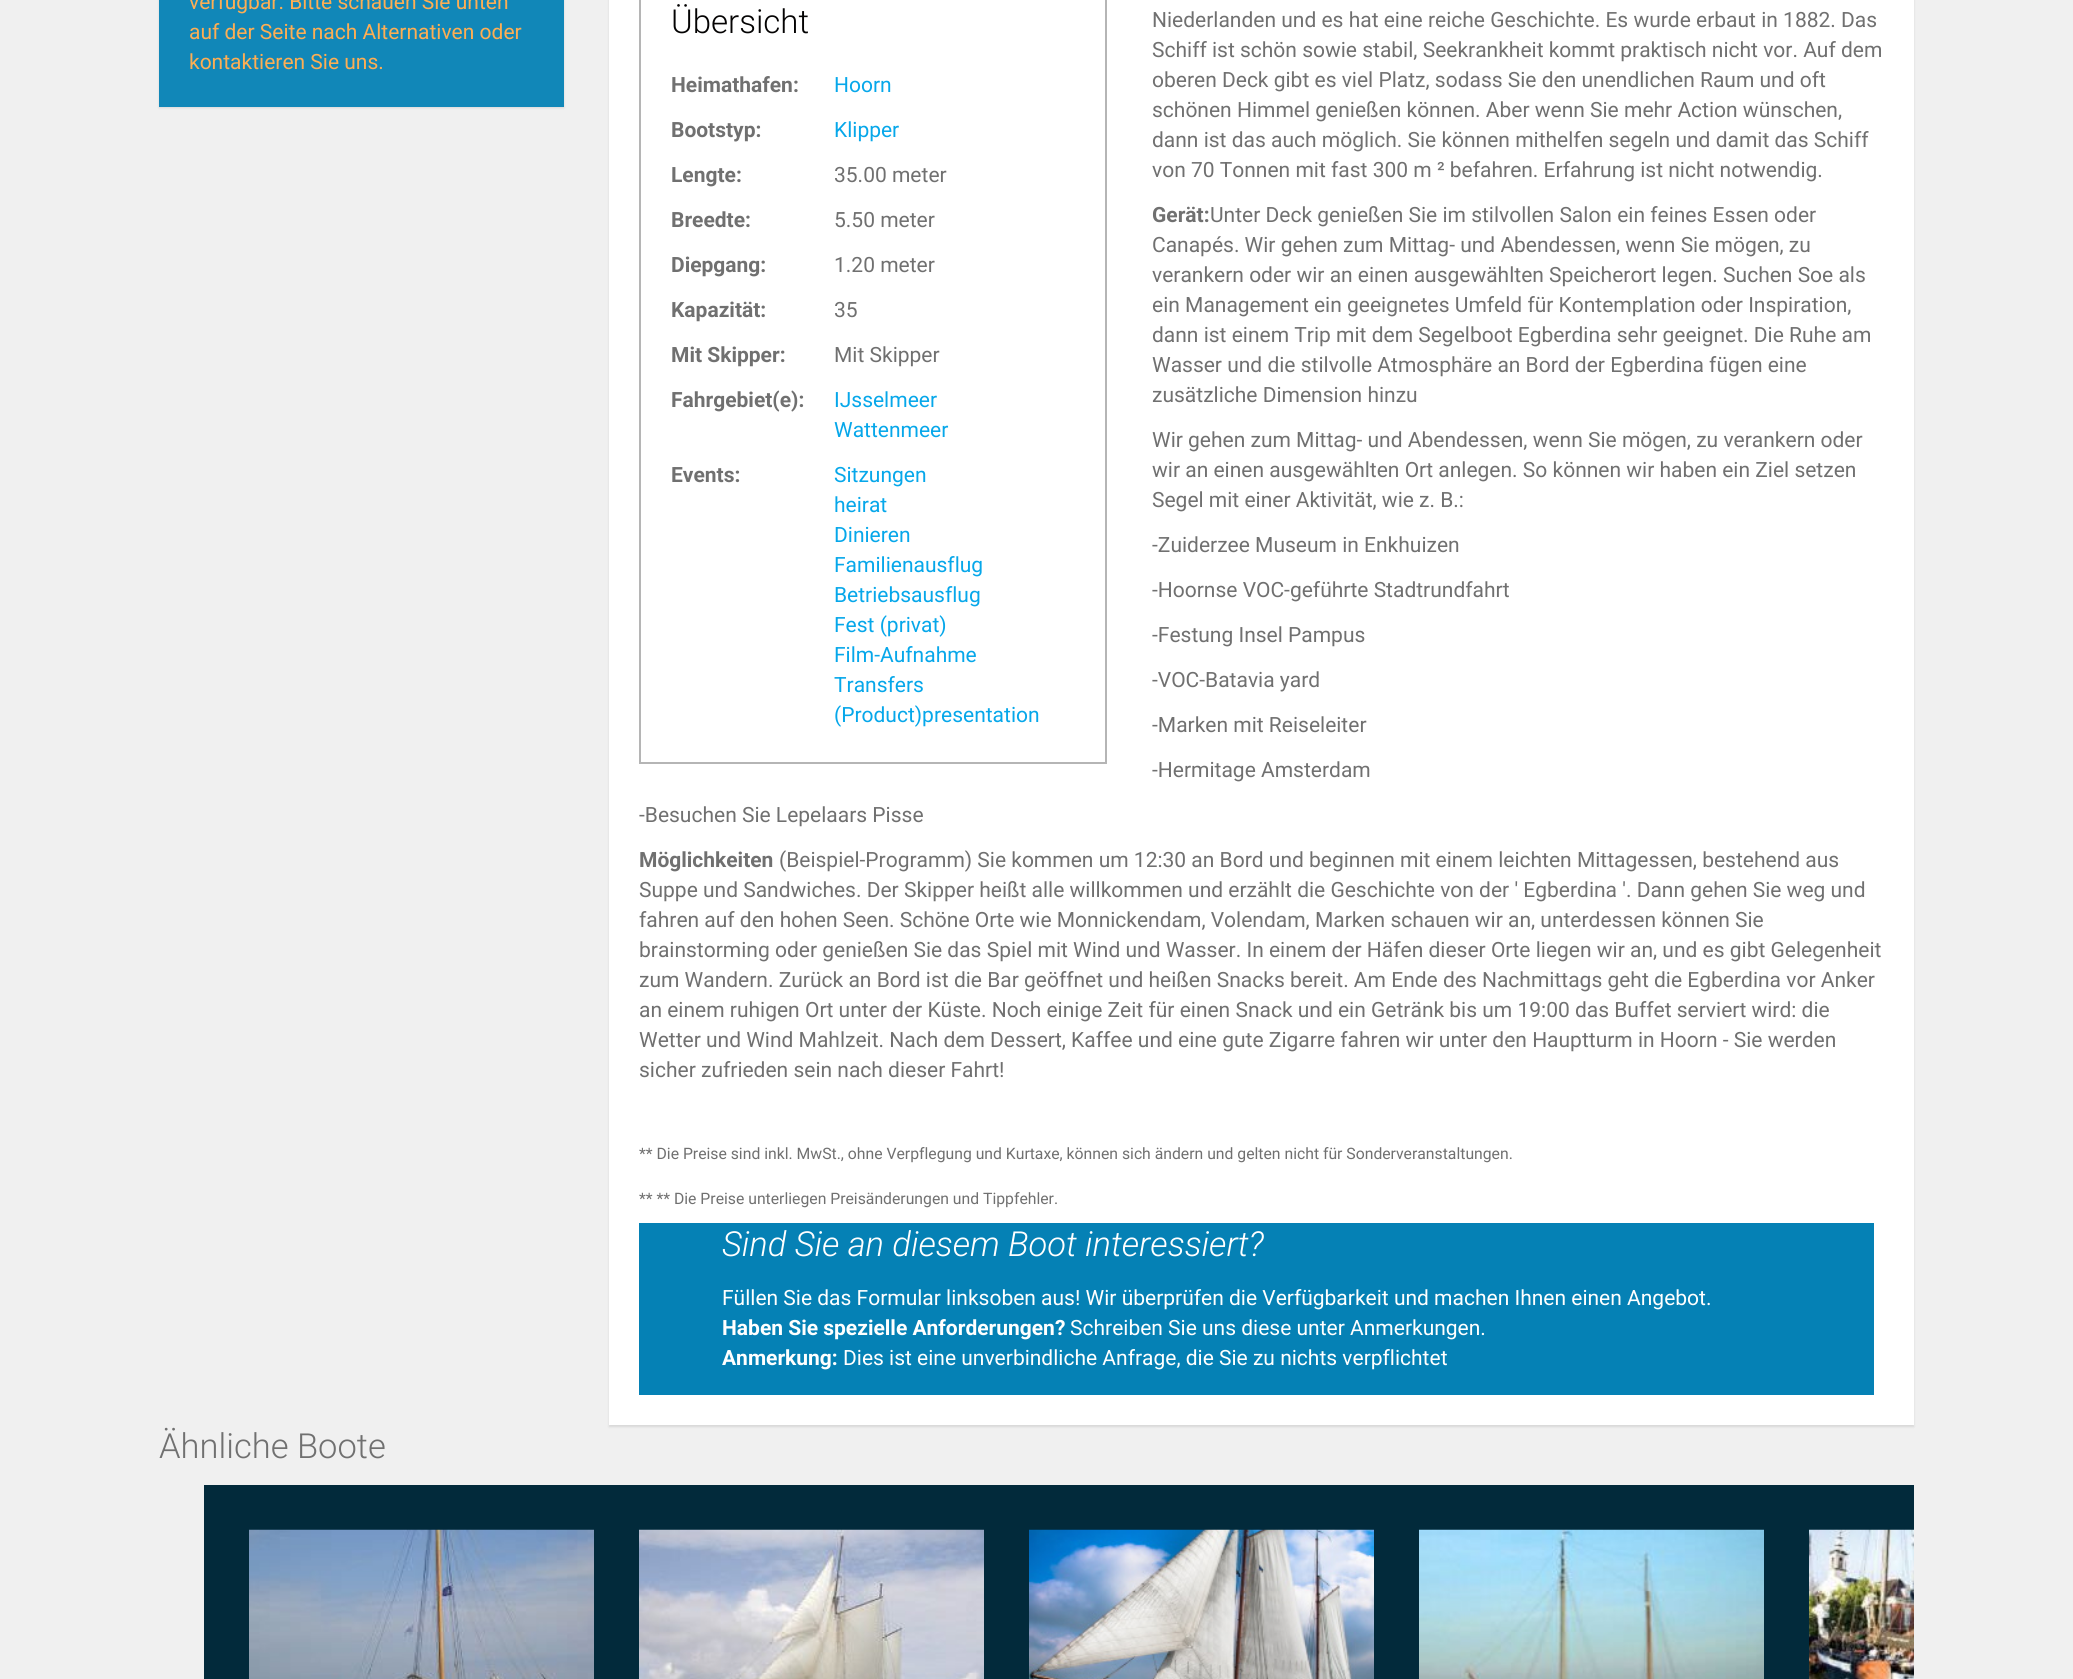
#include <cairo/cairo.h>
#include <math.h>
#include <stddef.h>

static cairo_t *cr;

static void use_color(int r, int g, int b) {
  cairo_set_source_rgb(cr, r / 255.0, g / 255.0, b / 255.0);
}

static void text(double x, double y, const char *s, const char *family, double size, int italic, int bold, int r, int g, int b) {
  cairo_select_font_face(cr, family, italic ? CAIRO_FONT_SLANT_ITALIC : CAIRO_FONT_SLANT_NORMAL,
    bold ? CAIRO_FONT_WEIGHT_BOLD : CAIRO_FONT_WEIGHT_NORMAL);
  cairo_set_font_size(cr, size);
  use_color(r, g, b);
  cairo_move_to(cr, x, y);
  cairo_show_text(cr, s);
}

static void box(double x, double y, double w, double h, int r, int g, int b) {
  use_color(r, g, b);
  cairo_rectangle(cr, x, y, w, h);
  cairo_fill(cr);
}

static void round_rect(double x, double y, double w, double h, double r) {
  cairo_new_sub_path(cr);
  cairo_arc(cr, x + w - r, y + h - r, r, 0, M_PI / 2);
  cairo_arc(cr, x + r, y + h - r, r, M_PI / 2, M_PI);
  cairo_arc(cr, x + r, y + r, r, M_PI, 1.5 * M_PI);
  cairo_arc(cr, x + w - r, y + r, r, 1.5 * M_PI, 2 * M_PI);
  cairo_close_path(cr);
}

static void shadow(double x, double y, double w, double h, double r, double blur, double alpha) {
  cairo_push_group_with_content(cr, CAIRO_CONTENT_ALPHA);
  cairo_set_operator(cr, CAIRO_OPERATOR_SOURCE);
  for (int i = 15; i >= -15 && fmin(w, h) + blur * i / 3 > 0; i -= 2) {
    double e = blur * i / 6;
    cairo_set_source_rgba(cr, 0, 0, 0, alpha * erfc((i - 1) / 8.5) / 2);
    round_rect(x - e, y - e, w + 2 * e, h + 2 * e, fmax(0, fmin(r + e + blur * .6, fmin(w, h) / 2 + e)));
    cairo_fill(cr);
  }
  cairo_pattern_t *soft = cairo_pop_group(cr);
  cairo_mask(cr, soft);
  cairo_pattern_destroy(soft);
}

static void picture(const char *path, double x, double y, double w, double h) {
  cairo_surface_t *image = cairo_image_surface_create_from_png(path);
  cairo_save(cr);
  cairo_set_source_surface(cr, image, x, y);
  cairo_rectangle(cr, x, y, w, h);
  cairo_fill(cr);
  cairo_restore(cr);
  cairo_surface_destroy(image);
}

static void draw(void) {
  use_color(240, 240, 240);
  cairo_paint(cr);
  use_color(12, 12, 12);
  shadow(159, -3, 405, 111, 0, 1, 0.1);
  box(159, 0, 405, 107, 17, 135, 184);
  use_color(0, 0, 0);
  shadow(609, -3, 1305, 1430, 0, 1, 0.1);
  box(609, 0, 1305, 1425, 255, 255, 255);
  cairo_rectangle(cr, 640, -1, 466, 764);
  use_color(181, 181, 181);
  cairo_stroke(cr);
  box(639, 1223, 1235, 172, 5, 129, 181);
  box(204, 1485, 1710, 194, 2, 42, 59);
  picture("img_01.png", 249, 1529, 345, 150);
  picture("img_02.png", 639, 1529, 345, 150);
  picture("img_03.png", 1029, 1529, 345, 150);
  picture("img_04.png", 1419, 1529, 345, 150);
  picture("img_05.png", 1809, 1529, 105, 150);
  text(189, 9, "verfügbar. Bitte schauen Sie unten", "Roboto", 21, 0, 0, 254, 174, 83);
  text(189, 39, "auf der Seite nach Alternativen oder", "Roboto", 21, 0, 0, 254, 174, 83);
  text(189, 69, "kontaktieren Sie uns.", "Roboto", 21, 0, 0, 254, 174, 83);
  text(671, 33, "Übersicht", "Roboto Light", 33, 0, 0, 4, 3, 3);
  text(671, 92, "Heimathafen:", "Roboto", 21, 0, 1, 112, 112, 112);
  text(834, 92, "Hoorn", "Roboto", 21, 0, 0, 6, 167, 234);
  text(671, 137, "Bootstyp:", "Roboto", 21, 0, 1, 112, 112, 112);
  text(834, 137, "Klipper", "Roboto", 21, 0, 0, 6, 167, 234);
  text(671, 182, "Lengte:", "Roboto", 21, 0, 1, 112, 112, 112);
  text(834, 182, "35.00 meter", "Roboto", 21, 0, 0, 112, 112, 112);
  text(671, 227, "Breedte:", "Roboto", 21, 0, 1, 112, 112, 112);
  text(834, 227, "5.50 meter", "Roboto", 21, 0, 0, 112, 112, 112);
  text(671, 272, "Diepgang:", "Roboto", 21, 0, 1, 112, 112, 112);
  text(834, 272, "1.20 meter", "Roboto", 21, 0, 0, 112, 112, 112);
  text(671, 317, "Kapazität:", "Roboto", 21, 0, 1, 112, 112, 112);
  text(834, 317, "35", "Roboto", 21, 0, 0, 112, 112, 112);
  text(671, 362, "Mit Skipper:", "Roboto", 21, 0, 1, 112, 112, 112);
  text(834, 362, "Mit Skipper", "Roboto", 21, 0, 0, 112, 112, 112);
  text(671, 407, "Fahrgebiet(e):", "Roboto", 21, 0, 1, 112, 112, 112);
  text(834, 407, "IJsselmeer", "Roboto", 21, 0, 0, 6, 167, 234);
  text(834, 437, "Wattenmeer", "Roboto", 21, 0, 0, 6, 167, 234);
  text(671, 482, "Events:", "Roboto", 21, 0, 1, 112, 112, 112);
  text(834, 482, "Sitzungen", "Roboto", 21, 0, 0, 6, 167, 234);
  text(834, 512, "heirat", "Roboto", 21, 0, 0, 6, 167, 234);
  text(834, 542, "Dinieren", "Roboto", 21, 0, 0, 6, 167, 234);
  text(834, 572, "Familienausflug", "Roboto", 21, 0, 0, 6, 167, 234);
  text(834, 602, "Betriebsausflug", "Roboto", 21, 0, 0, 6, 167, 234);
  text(834, 632, "Fest (privat)", "Roboto", 21, 0, 0, 6, 167, 234);
  text(834, 662, "Film-Aufnahme", "Roboto", 21, 0, 0, 6, 167, 234);
  text(834, 692, "Transfers", "Roboto", 21, 0, 0, 6, 167, 234);
  text(834, 722, "(Product)presentation", "Roboto", 21, 0, 0, 6, 167, 234);
  text(1152, 27, "Niederlanden und es hat eine reiche Geschichte. Es wurde erbaut in 1882. Das", "Roboto", 21, 0, 0, 112, 112, 112);
  text(1152, 57, "Schiff ist schön sowie stabil, Seekrankheit kommt praktisch nicht vor. Auf dem", "Roboto", 21, 0, 0, 112, 112, 112);
  text(1152, 87, "oberen Deck gibt es viel Platz, sodass Sie den unendlichen Raum und oft", "Roboto", 21, 0, 0, 112, 112, 112);
  text(1152, 117, "schönen Himmel genießen können. Aber wenn Sie mehr Action wünschen,", "Roboto", 21, 0, 0, 112, 112, 112);
  text(1152, 147, "dann ist das auch möglich. Sie können mithelfen segeln und damit das Schiff", "Roboto", 21, 0, 0, 112, 112, 112);
  text(1152, 177, "von 70 Tonnen mit fast 300 m ² befahren. Erfahrung ist nicht notwendig.", "Roboto", 21, 0, 0, 112, 112, 112);
  text(1152, 222, "Gerät:", "Roboto", 21, 0, 1, 112, 112, 112);
  text(1210, 222, "Unter Deck genießen Sie im stilvollen Salon ein feines Essen oder", "Roboto", 21, 0, 0, 112, 112, 112);
  text(1152, 252, "Canapés. Wir gehen zum Mittag- und Abendessen, wenn Sie mögen, zu", "Roboto", 21, 0, 0, 112, 112, 112);
  text(1152, 282, "verankern oder wir an einen ausgewählten Speicherort legen. Suchen Soe als", "Roboto", 21, 0, 0, 112, 112, 112);
  text(1152, 312, "ein Management ein geeignetes Umfeld für Kontemplation oder Inspiration,", "Roboto", 21, 0, 0, 112, 112, 112);
  text(1152, 342, "dann ist einem Trip mit dem Segelboot Egberdina sehr geeignet. Die Ruhe am", "Roboto", 21, 0, 0, 112, 112, 112);
  text(1152, 372, "Wasser und die stilvolle Atmosphäre an Bord der Egberdina fügen eine", "Roboto", 21, 0, 0, 112, 112, 112);
  text(1152, 402, "zusätzliche Dimension hinzu", "Roboto", 21, 0, 0, 112, 112, 112);
  text(1152, 447, "Wir gehen zum Mittag- und Abendessen, wenn Sie mögen, zu verankern oder", "Roboto", 21, 0, 0, 112, 112, 112);
  text(1152, 477, "wir an einen ausgewählten Ort anlegen. So können wir haben ein Ziel setzen", "Roboto", 21, 0, 0, 112, 112, 112);
  text(1152, 507, "Segel mit einer Aktivität, wie z. B.:", "Roboto", 21, 0, 0, 112, 112, 112);
  text(1152, 552, "-Zuiderzee Museum in Enkhuizen", "Roboto", 21, 0, 0, 112, 112, 112);
  text(1152, 597, "-Hoornse VOC-geführte Stadtrundfahrt", "Roboto", 21, 0, 0, 112, 112, 112);
  text(1152, 642, "-Festung Insel Pampus", "Roboto", 21, 0, 0, 112, 112, 112);
  text(1152, 687, "-VOC-Batavia yard", "Roboto", 21, 0, 0, 112, 112, 112);
  text(1152, 732, "-Marken mit Reiseleiter", "Roboto", 21, 0, 0, 112, 112, 112);
  text(1152, 777, "-Hermitage Amsterdam", "Roboto", 21, 0, 0, 112, 112, 112);
  text(639, 822, "-Besuchen Sie Lepelaars Pisse", "Roboto", 21, 0, 0, 112, 112, 112);
  text(639, 867, "Möglichkeiten", "Roboto", 21, 0, 1, 112, 112, 112);
  text(779, 867, "(Beispiel-Programm) Sie kommen um 12:30 an Bord und beginnen mit einem leichten Mittagessen, bestehend aus", "Roboto", 21, 0, 0, 112, 112, 112);
  text(639, 897, "Suppe und Sandwiches. Der Skipper heißt alle willkommen und erzählt die Geschichte von der ' Egberdina '. Dann gehen Sie weg und", "Roboto", 21, 0, 0, 112, 112, 112);
  text(639, 927, "fahren auf den hohen Seen. Schöne Orte wie Monnickendam, Volendam, Marken schauen wir an, unterdessen können Sie", "Roboto", 21, 0, 0, 112, 112, 112);
  text(639, 957, "brainstorming oder genießen Sie das Spiel mit Wind und Wasser. In einem der Häfen dieser Orte liegen wir an, und es gibt Gelegenheit", "Roboto", 21, 0, 0, 112, 112, 112);
  text(639, 987, "zum Wandern. Zurück an Bord ist die Bar geöffnet und heißen Snacks bereit. Am Ende des Nachmittags geht die Egberdina vor Anker", "Roboto", 21, 0, 0, 112, 112, 112);
  text(639, 1017, "an einem ruhigen Ort unter der Küste. Noch einige Zeit für einen Snack und ein Getränk bis um 19:00 das Buffet serviert wird: die", "Roboto", 21, 0, 0, 112, 112, 112);
  text(639, 1047, "Wetter und Wind Mahlzeit. Nach dem Dessert, Kaffee und eine gute Zigarre fahren wir unter den Hauptturm in Hoorn - Sie werden", "Roboto", 21, 0, 0, 112, 112, 112);
  text(639, 1077, "sicher zufrieden sein nach dieser Fahrt!", "Roboto", 21, 0, 0, 112, 112, 112);
  text(639, 1159, "** Die Preise sind inkl. MwSt., ohne Verpflegung und Kurtaxe, können sich ändern und gelten nicht für Sonderveranstaltungen.", "Roboto", 15.75, 0, 0, 112, 112, 112);
  text(639, 1204, "** ** Die Preise unterliegen Preisänderungen und Tippfehler.", "Roboto", 15.75, 0, 0, 112, 112, 112);
  text(722, 1256, "Sind Sie an diesem Boot interessiert?", "Roboto Light", 34.5, 1, 0, 255, 255, 255);
  text(722, 1305, "Füllen Sie das Formular linksoben aus! Wir überprüfen die Verfügbarkeit und machen Ihnen einen Angebot.", "Roboto", 21, 0, 0, 255, 255, 255);
  text(722, 1335, "Haben Sie spezielle Anforderungen?", "Roboto", 21, 0, 1, 255, 255, 255);
  text(1070, 1335, "Schreiben Sie uns diese unter Anmerkungen.", "Roboto", 21, 0, 0, 255, 255, 255);
  text(722, 1365, "Anmerkung:", "Roboto", 21, 0, 1, 255, 255, 255);
  text(843, 1365, "Dies ist eine unverbindliche Anfrage, die Sie zu nichts verpflichtet", "Roboto", 21, 0, 0, 255, 255, 255);
  text(159, 1458, "Ähnliche Boote", "Roboto Light", 34.5, 0, 0, 112, 112, 112);
}

int main(void) {
  cairo_surface_t *surface = cairo_image_surface_create(CAIRO_FORMAT_RGB24, 2073, 1679);
  cr = cairo_create(surface);
  cairo_font_options_t *options = cairo_font_options_create();
  cairo_font_options_set_hint_metrics(options, CAIRO_HINT_METRICS_OFF);
  cairo_font_options_set_hint_style(options, CAIRO_HINT_STYLE_NONE);
  cairo_set_font_options(cr, options);
  cairo_set_miter_limit(cr, 4);
  draw();
  cairo_surface_write_to_png(surface, "out.png");
  cairo_font_options_destroy(options);
  cairo_destroy(cr);
  cairo_surface_destroy(surface);
  return 0;
}
